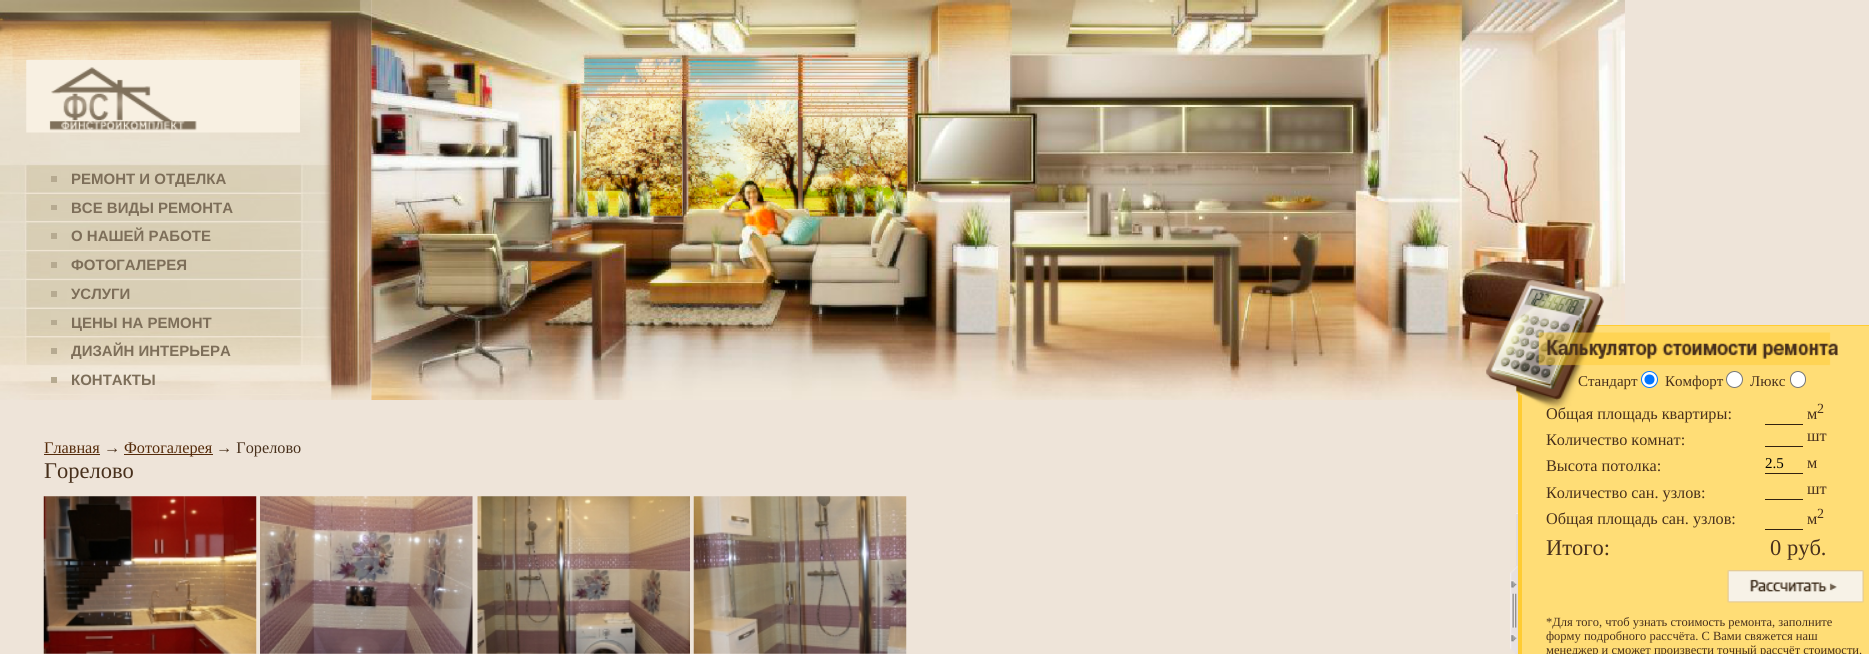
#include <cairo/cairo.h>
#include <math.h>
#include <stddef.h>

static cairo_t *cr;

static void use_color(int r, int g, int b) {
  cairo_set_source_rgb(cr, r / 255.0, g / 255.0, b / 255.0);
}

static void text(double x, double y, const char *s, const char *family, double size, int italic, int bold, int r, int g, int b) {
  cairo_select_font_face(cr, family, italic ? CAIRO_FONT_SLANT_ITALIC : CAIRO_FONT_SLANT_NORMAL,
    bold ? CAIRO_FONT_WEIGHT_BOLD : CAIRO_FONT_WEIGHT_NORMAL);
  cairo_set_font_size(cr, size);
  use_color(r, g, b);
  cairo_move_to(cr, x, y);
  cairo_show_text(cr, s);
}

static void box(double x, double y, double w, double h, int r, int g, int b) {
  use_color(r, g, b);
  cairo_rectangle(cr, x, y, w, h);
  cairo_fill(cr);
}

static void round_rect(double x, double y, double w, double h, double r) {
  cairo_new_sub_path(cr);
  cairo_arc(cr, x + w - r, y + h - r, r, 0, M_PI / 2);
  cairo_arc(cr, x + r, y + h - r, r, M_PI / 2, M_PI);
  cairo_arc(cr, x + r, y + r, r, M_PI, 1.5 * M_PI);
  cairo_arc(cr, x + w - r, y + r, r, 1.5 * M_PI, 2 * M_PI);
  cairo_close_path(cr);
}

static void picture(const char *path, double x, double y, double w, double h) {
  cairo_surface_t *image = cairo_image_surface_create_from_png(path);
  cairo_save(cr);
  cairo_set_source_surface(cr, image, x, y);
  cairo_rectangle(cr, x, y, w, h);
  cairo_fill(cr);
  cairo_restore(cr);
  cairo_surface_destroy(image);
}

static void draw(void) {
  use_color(238, 228, 217);
  cairo_paint(cr);
  picture("img_03.png", 371, 0, 1254, 400);
  picture("img_01.png", 0, 0, 372, 400);
  picture("img_02.png", 26, 60, 274, 73);
  box(26, 193, 275, 1, 239, 228, 210);
  box(51, 176, 6, 6, 182, 170, 145);
  box(26, 221, 275, 1, 239, 228, 210);
  box(51, 205, 6, 5, 182, 170, 145);
  box(26, 250, 275, 1, 239, 228, 210);
  box(51, 233, 6, 6, 182, 170, 145);
  box(26, 279, 275, 1, 239, 228, 210);
  box(51, 262, 6, 6, 182, 170, 145);
  box(26, 308, 275, 1, 239, 228, 210);
  box(51, 291, 6, 6, 182, 170, 145);
  box(26, 336, 275, 1, 239, 228, 210);
  box(51, 320, 6, 5, 182, 170, 145);
  box(26, 365, 275, 1, 239, 228, 210);
  box(51, 348, 6, 6, 182, 170, 145);
  box(26, 394, 275, 1, 239, 228, 210);
  box(51, 377, 6, 6, 182, 170, 145);
  box(44, 454, 56, 1, 85, 43, 10);
  box(124, 454, 89, 1, 85, 43, 10);
  picture("img_04.png", 43, 496, 214, 158);
  picture("img_05.png", 260, 496, 213, 158);
  picture("img_06.png", 477, 496, 213, 158);
  picture("img_07.png", 693, 496, 214, 158);
  box(1516, 513, 2, 1, 244, 238, 237);
  box(1516, 514, 2, 140, 227, 221, 221);
  picture("img_08.png", 1510, 566, 8, 88);
  box(1522, 326, 347, 328, 255, 221, 118);
  box(1593, 325, 276, 1, 255, 204, 50);
  box(1518, 393, 4, 261, 255, 204, 50);
  picture("img_09.png", 1486, 280, 353, 130);
  use_color(255, 255, 255);
  cairo_arc(cr, 1649.5, 379.5, 8, 0, 2 * M_PI);
  cairo_fill_preserve(cr);
  use_color(0, 117, 255);
  cairo_set_line_width(cr, 1);
  cairo_stroke(cr);
  cairo_arc(cr, 1649.5, 379.5, 5, 0, 2 * M_PI);
  cairo_fill(cr);
  use_color(255, 255, 255);
  cairo_arc(cr, 1734.5, 379.5, 8, 0, 2 * M_PI);
  cairo_fill_preserve(cr);
  use_color(118, 118, 118);
  cairo_stroke(cr);
  use_color(255, 255, 255);
  round_rect(1790.5, 371.5, 15, 16, 7.5);
  cairo_fill_preserve(cr);
  use_color(118, 118, 118);
  cairo_stroke(cr);
  box(1765, 424, 38, 1, 51, 34, 16);
  box(1765, 446, 38, 1, 51, 34, 16);
  box(1765, 473, 38, 1, 51, 34, 16);
  box(1765, 499, 38, 1, 51, 34, 16);
  box(1765, 529, 38, 1, 51, 34, 16);
  picture("img_10.png", 1727, 570, 137, 33);
  text(71, 184, "РЕМОНТ И ОТДЕЛКА", "Liberation Sans", 15, 0, 1, 125, 110, 89);
  text(71, 213, "ВСЕ ВИДЫ РЕМОНТА", "Liberation Sans", 15, 0, 1, 125, 110, 89);
  text(71, 241, "О НАШЕЙ РАБОТЕ", "Liberation Sans", 15, 0, 1, 125, 110, 89);
  text(71, 270, "ФОТОГАЛЕРЕЯ", "Liberation Sans", 15, 0, 1, 125, 110, 89);
  text(71, 299, "УСЛУГИ", "Liberation Sans", 15, 0, 1, 125, 110, 89);
  text(71, 328, "ЦЕНЫ НА РЕМОНТ", "Liberation Sans", 15, 0, 1, 125, 110, 89);
  text(71, 356, "ДИЗАЙН ИНТЕРЬЕРА", "Liberation Sans", 15, 0, 1, 125, 110, 89);
  text(71, 385, "КОНТАКТЫ", "Liberation Sans", 15, 0, 1, 125, 110, 89);
  text(44, 453, "Главная", "Liberation Serif", 16.25, 0, 0, 85, 43, 10);
  text(104, 453, "→", "Liberation Serif", 16.25, 0, 0, 72, 48, 28);
  text(124, 453, "Фотогалерея", "Liberation Serif", 16.25, 0, 0, 85, 43, 10);
  text(216, 453, "→ Горелово", "Liberation Serif", 16.25, 0, 0, 72, 48, 28);
  text(44, 478, "Горелово", "Liberation Serif", 22.5, 0, 0, 72, 48, 28);
  text(1578, 386, "Стандарт", "Liberation Serif", 15, 0, 0, 72, 48, 28);
  text(1665, 386, "Комфорт", "Liberation Serif", 15, 0, 0, 72, 48, 28);
  text(1750, 386, "Люкс", "Liberation Serif", 15, 0, 0, 72, 48, 28);
  text(1546, 419, "Общая площадь квартиры:", "Liberation Serif", 16.25, 0, 0, 72, 48, 28);
  text(1817, 413, "2", "Liberation Serif", 14, 0, 0, 72, 48, 28);
  text(1807, 419, "м", "Liberation Serif", 16.25, 0, 0, 72, 48, 28);
  text(1546, 445, "Количество комнат:", "Liberation Serif", 16.25, 0, 0, 72, 48, 28);
  text(1807, 441, "шт", "Liberation Serif", 16.25, 0, 0, 72, 48, 28);
  text(1546, 471, "Высота потолка:", "Liberation Serif", 16.25, 0, 0, 72, 48, 28);
  text(1765, 468, "2.5", "Liberation Serif", 15, 0, 0, 0, 0, 0);
  text(1807, 468, "м", "Liberation Serif", 16.25, 0, 0, 72, 48, 28);
  text(1546, 498, "Количество сан. узлов:", "Liberation Serif", 16.25, 0, 0, 72, 48, 28);
  text(1807, 494, "шт", "Liberation Serif", 16.25, 0, 0, 72, 48, 28);
  text(1546, 524, "Общая площадь сан. узлов:", "Liberation Serif", 16.25, 0, 0, 72, 48, 28);
  text(1817, 518, "2", "Liberation Serif", 14, 0, 0, 72, 48, 28);
  text(1807, 524, "м", "Liberation Serif", 16.25, 0, 0, 72, 48, 28);
  text(1546, 555, "Итого:", "Liberation Serif", 22.5, 0, 0, 72, 48, 28);
  text(1770, 555, "0 руб.", "Liberation Serif", 22.5, 0, 0, 72, 48, 28);
  text(1546, 626, "*Для того, чтоб узнать стоимость ремонта, заполните", "Liberation Serif", 12.5, 0, 0, 72, 48, 28);
  text(1546, 640, "форму подробного рассчёта. С Вами свяжется наш", "Liberation Serif", 12.5, 0, 0, 72, 48, 28);
  text(1546, 654, "менеджер и сможет произвести точный рассчёт стоимости.", "Liberation Serif", 12.5, 0, 0, 72, 48, 28);
}

int main(void) {
  cairo_surface_t *surface = cairo_image_surface_create(CAIRO_FORMAT_RGB24, 1869, 654);
  cr = cairo_create(surface);
  cairo_font_options_t *options = cairo_font_options_create();
  cairo_font_options_set_hint_metrics(options, CAIRO_HINT_METRICS_OFF);
  cairo_font_options_set_hint_style(options, CAIRO_HINT_STYLE_NONE);
  cairo_set_font_options(cr, options);
  cairo_set_miter_limit(cr, 4);
  draw();
  cairo_surface_write_to_png(surface, "out.png");
  cairo_font_options_destroy(options);
  cairo_destroy(cr);
  cairo_surface_destroy(surface);
  return 0;
}
